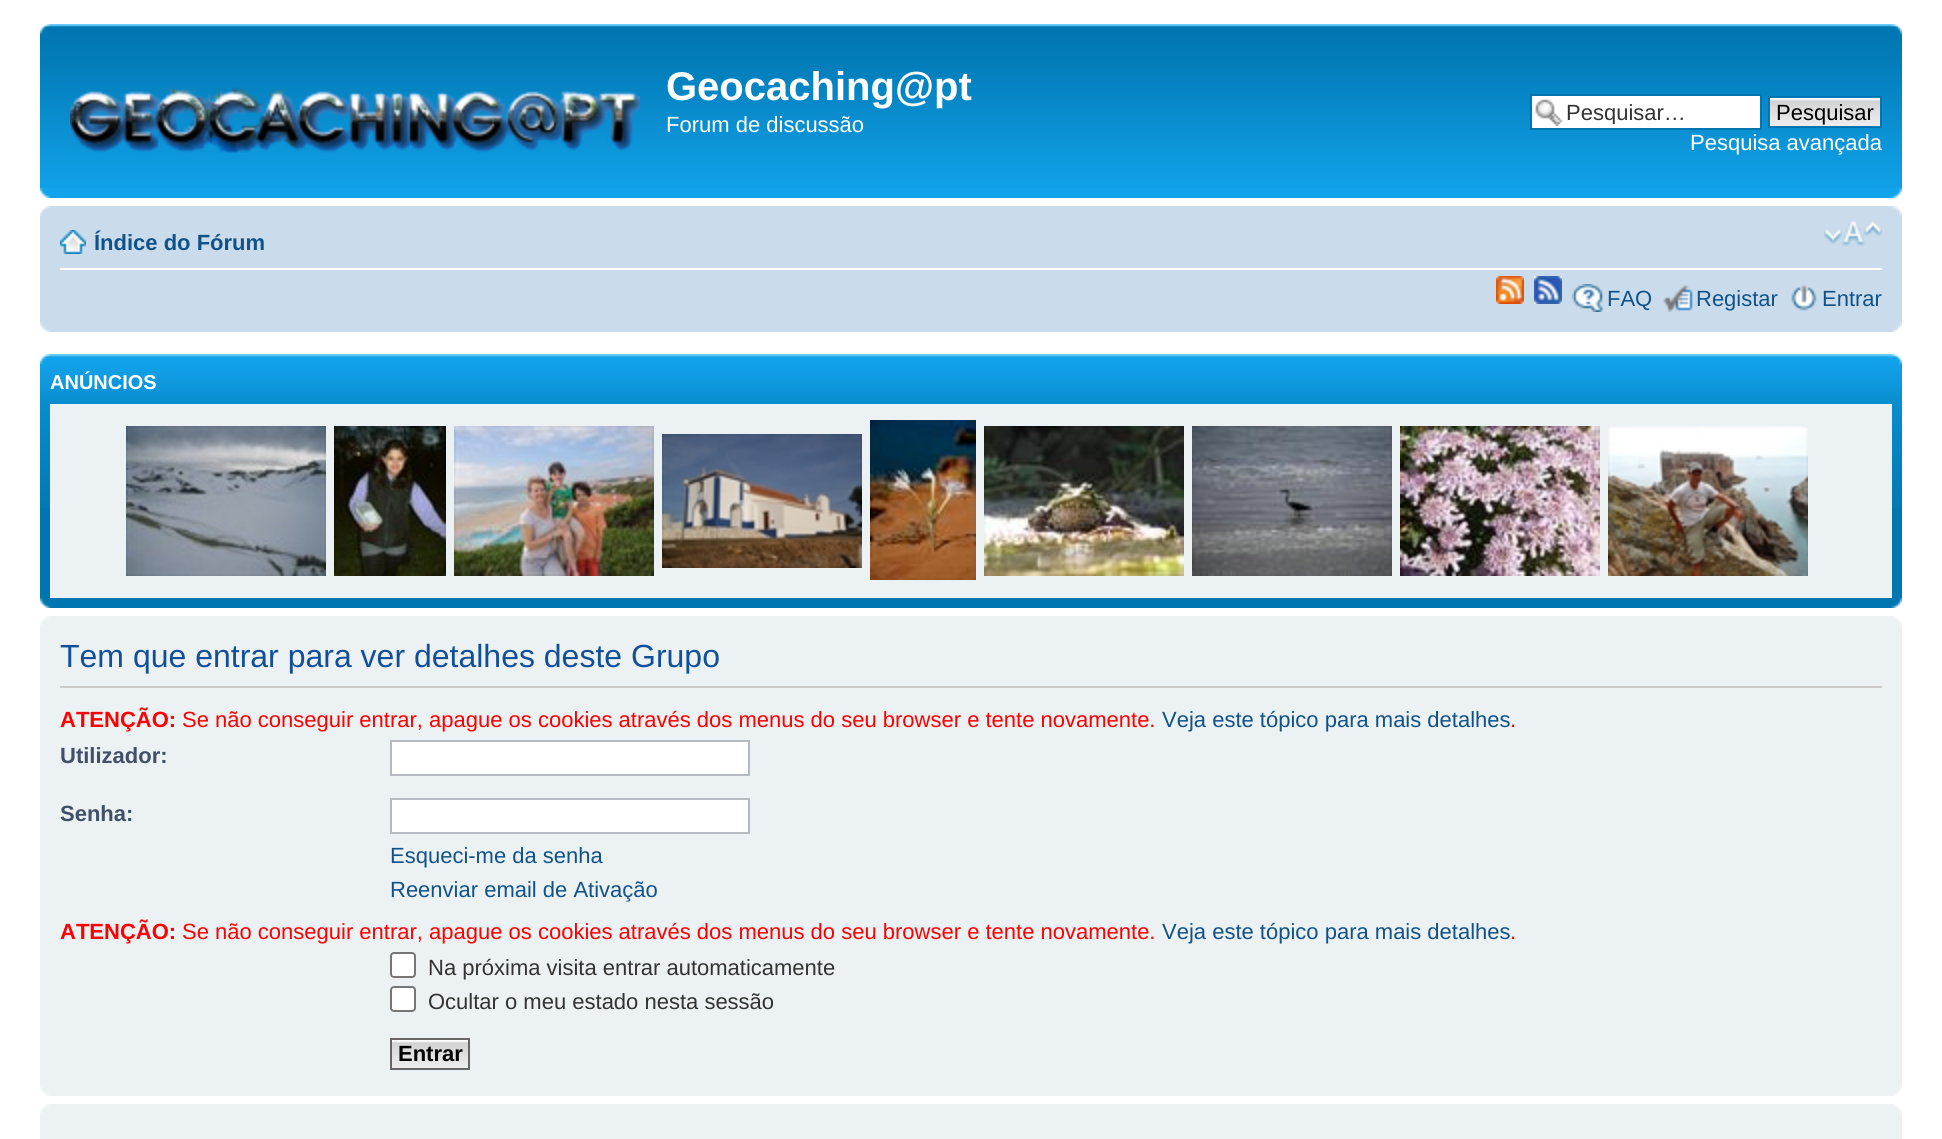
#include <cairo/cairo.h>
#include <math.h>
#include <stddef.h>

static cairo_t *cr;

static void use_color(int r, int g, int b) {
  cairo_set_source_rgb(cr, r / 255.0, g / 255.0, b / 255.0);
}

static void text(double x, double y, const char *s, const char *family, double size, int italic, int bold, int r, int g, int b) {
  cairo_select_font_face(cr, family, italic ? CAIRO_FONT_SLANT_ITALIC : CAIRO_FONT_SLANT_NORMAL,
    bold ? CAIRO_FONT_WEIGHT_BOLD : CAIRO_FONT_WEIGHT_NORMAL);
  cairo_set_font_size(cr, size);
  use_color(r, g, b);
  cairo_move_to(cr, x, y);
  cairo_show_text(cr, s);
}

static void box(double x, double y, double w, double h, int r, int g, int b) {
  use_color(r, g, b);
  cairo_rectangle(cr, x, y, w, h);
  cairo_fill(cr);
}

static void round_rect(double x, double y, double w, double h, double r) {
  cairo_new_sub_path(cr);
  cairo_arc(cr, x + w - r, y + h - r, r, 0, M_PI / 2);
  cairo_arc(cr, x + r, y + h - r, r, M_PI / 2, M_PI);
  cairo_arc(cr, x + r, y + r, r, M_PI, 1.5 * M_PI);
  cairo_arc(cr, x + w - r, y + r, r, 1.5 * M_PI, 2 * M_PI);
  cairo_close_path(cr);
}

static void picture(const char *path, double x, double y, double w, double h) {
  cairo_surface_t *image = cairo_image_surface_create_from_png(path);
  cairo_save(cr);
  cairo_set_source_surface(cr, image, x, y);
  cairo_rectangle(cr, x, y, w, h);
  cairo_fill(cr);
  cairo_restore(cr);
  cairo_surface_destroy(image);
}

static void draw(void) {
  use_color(255, 255, 255);
  cairo_paint(cr);
  box(40, 188, 1862, 10, 18, 163, 235);
  picture("img_01.png", 40, 24, 1862, 164);
  picture("img_02.png", 40, 24, 11, 10);
  picture("img_03.png", 1891, 24, 11, 10);
  picture("img_04.png", 70, 86, 570, 67);
  box(1532, 96, 228, 32, 255, 255, 255);
  picture("img_05.png", 1535, 99, 28, 27);
  cairo_rectangle(cr, 1531, 95, 230, 34);
  use_color(0, 117, 176);
  cairo_stroke(cr);
  picture("img_06.png", 1770, 98, 110, 28);
  cairo_rectangle(cr, 1769, 97, 112, 30);
  cairo_stroke(cr);
  picture("img_07.png", 40, 188, 11, 10);
  picture("img_08.png", 1891, 188, 11, 10);
  box(40, 206, 1862, 126, 202, 220, 235);
  picture("img_09.png", 40, 206, 11, 10);
  picture("img_10.png", 1891, 206, 11, 10);
  box(60, 268, 1822, 2, 255, 255, 255);
  picture("img_11.png", 60, 230, 26, 24);
  picture("img_12.png", 1824, 221, 58, 26);
  picture("img_13.png", 1496, 276, 28, 28);
  picture("img_14.png", 1534, 276, 28, 28);
  picture("img_15.png", 1572, 284, 32, 28);
  picture("img_16.png", 1663, 285, 30, 27);
  picture("img_17.png", 1791, 285, 26, 26);
  picture("img_18.png", 40, 322, 10, 10);
  picture("img_19.png", 1892, 322, 10, 10);
  box(40, 508, 1862, 100, 0, 118, 177);
  picture("img_20.png", 40, 354, 1862, 154);
  picture("img_21.png", 40, 354, 11, 10);
  picture("img_22.png", 1891, 354, 11, 10);
  box(50, 404, 1842, 194, 236, 241, 243);
  picture("img_23.png", 126, 420, 1682, 160);
  picture("img_24.png", 40, 598, 11, 10);
  picture("img_25.png", 1891, 598, 11, 10);
  box(40, 616, 1862, 480, 236, 241, 243);
  picture("img_26.png", 40, 616, 9, 10);
  picture("img_27.png", 1893, 616, 9, 10);
  box(60, 686, 1822, 2, 204, 204, 204);
  use_color(255, 255, 255);
  cairo_rectangle(cr, 391, 741, 358, 34);
  cairo_fill_preserve(cr);
  use_color(180, 186, 192);
  cairo_stroke(cr);
  use_color(255, 255, 255);
  cairo_rectangle(cr, 391, 799, 358, 34);
  cairo_fill_preserve(cr);
  use_color(180, 186, 192);
  cairo_stroke(cr);
  use_color(255, 255, 255);
  round_rect(391, 953, 24, 24, 3);
  cairo_fill_preserve(cr);
  use_color(118, 118, 118);
  cairo_stroke(cr);
  use_color(255, 255, 255);
  round_rect(391, 987, 24, 24, 3);
  cairo_fill_preserve(cr);
  use_color(118, 118, 118);
  cairo_stroke(cr);
  picture("img_28.png", 392, 1040, 76, 28);
  cairo_rectangle(cr, 391, 1039, 78, 30);
  use_color(102, 102, 102);
  cairo_stroke(cr);
  picture("img_29.png", 40, 1086, 9, 10);
  picture("img_30.png", 1893, 1086, 9, 10);
  box(40, 1104, 1862, 35, 236, 241, 243);
  picture("img_26.png", 40, 1104, 9, 10);
  picture("img_27.png", 1893, 1104, 9, 10);
  text(666, 100, "Geocaching@pt", "Liberation Sans", 40, 0, 1, 255, 255, 255);
  text(666, 132, "Forum de discussão", "Liberation Sans", 22, 0, 0, 255, 255, 255);
  cairo_save(cr);
  cairo_rectangle(cr, 1566, 100, 190, 24);
  cairo_clip(cr);
  text(1566, 120, "Pesquisar…", "Liberation Sans", 22, 0, 0, 51, 51, 51);
  cairo_restore(cr);
  text(1776, 120, "Pesquisar", "Liberation Sans", 22, 0, 0, 0, 0, 0);
  text(1690, 150, "Pesquisa avançada", "Liberation Sans", 22, 0, 0, 255, 255, 255);
  text(94, 250, "Índice do Fórum", "Liberation Sans", 22, 0, 1, 16, 82, 137);
  text(1607, 306, "FAQ", "Liberation Sans", 22, 0, 0, 16, 82, 137);
  text(1696, 306, "Registar", "Liberation Sans", 22, 0, 0, 16, 82, 137);
  text(1822, 306, "Entrar", "Liberation Sans", 22, 0, 0, 16, 82, 137);
  text(50, 389, "ANÚNCIOS", "Liberation Sans", 20, 0, 1, 255, 255, 255);
  text(60, 667, "Tem que entrar para ver detalhes deste Grupo", "Liberation Sans", 32, 0, 0, 17, 80, 152);
  text(60, 727, "ATENÇÃO:", "Liberation Sans", 22, 0, 1, 255, 0, 0);
  text(182, 727, "Se não conseguir entrar, apague os cookies através dos menus do seu browser e tente novamente.", "Liberation Sans", 22, 0, 0, 255, 0, 0);
  text(1162, 727, "Veja este tópico para mais detalhes", "Liberation Sans", 22, 0, 0, 16, 82, 137);
  text(1510, 727, ".", "Liberation Sans", 22, 0, 0, 255, 0, 0);
  text(60, 763, "Utilizador:", "Liberation Sans", 22, 0, 1, 66, 80, 103);
  text(60, 821, "Senha:", "Liberation Sans", 22, 0, 1, 66, 80, 103);
  text(390, 863, "Esqueci-me da senha", "Liberation Sans", 22, 0, 0, 16, 82, 137);
  text(390, 897, "Reenviar email de Ativação", "Liberation Sans", 22, 0, 0, 16, 82, 137);
  text(60, 939, "ATENÇÃO:", "Liberation Sans", 22, 0, 1, 255, 0, 0);
  text(182, 939, "Se não conseguir entrar, apague os cookies através dos menus do seu browser e tente novamente.", "Liberation Sans", 22, 0, 0, 255, 0, 0);
  text(1162, 939, "Veja este tópico para mais detalhes", "Liberation Sans", 22, 0, 0, 16, 82, 137);
  text(1510, 939, ".", "Liberation Sans", 22, 0, 0, 255, 0, 0);
  text(428, 975, "Na próxima visita entrar automaticamente", "Liberation Sans", 22, 0, 0, 51, 51, 51);
  text(428, 1009, "Ocultar o meu estado nesta sessão", "Liberation Sans", 22, 0, 0, 51, 51, 51);
  text(398, 1061, "Entrar", "Liberation Sans", 22, 0, 1, 0, 0, 0);
}

int main(void) {
  cairo_surface_t *surface = cairo_image_surface_create(CAIRO_FORMAT_RGB24, 1942, 1139);
  cr = cairo_create(surface);
  cairo_font_options_t *options = cairo_font_options_create();
  cairo_font_options_set_hint_metrics(options, CAIRO_HINT_METRICS_OFF);
  cairo_font_options_set_hint_style(options, CAIRO_HINT_STYLE_NONE);
  cairo_set_font_options(cr, options);
  cairo_set_miter_limit(cr, 4);
  draw();
  cairo_surface_write_to_png(surface, "out.png");
  cairo_font_options_destroy(options);
  cairo_destroy(cr);
  cairo_surface_destroy(surface);
  return 0;
}
